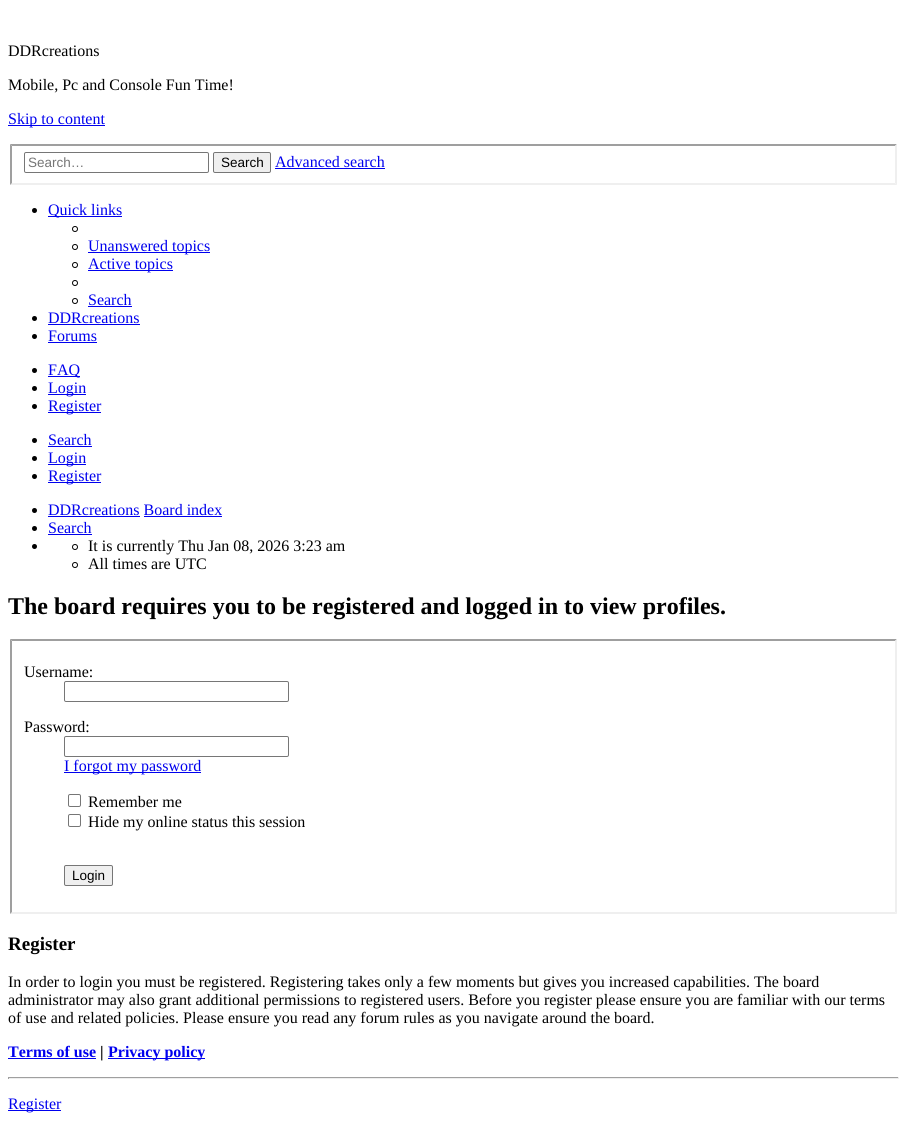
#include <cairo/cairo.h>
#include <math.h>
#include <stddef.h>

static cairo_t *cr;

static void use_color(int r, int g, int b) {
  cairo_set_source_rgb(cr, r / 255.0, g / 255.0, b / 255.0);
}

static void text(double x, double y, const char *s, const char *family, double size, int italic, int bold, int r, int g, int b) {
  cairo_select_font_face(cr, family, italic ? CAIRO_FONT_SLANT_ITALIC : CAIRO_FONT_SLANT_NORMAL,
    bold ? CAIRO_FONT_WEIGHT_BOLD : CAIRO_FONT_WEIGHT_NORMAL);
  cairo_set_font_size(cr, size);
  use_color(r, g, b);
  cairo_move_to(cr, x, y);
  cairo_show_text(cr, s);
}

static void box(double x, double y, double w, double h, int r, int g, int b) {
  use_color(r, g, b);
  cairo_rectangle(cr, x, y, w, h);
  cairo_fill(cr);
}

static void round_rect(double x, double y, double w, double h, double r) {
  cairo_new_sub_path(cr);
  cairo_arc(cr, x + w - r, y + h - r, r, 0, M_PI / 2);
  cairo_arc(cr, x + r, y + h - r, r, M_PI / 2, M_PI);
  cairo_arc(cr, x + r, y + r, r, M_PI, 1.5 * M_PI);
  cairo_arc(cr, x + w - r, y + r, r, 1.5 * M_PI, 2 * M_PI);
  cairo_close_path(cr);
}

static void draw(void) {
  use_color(255, 255, 255);
  cairo_paint(cr);
  box(8, 125, 97, 1, 0, 0, 238);
  use_color(159, 159, 159);
  cairo_new_path(cr);
  cairo_move_to(cr, 10, 144);
  cairo_line_to(cr, 897, 144);
  cairo_line_to(cr, 895, 146);
  cairo_line_to(cr, 12, 146);
  cairo_close_path(cr);
  cairo_fill(cr);
  use_color(239, 239, 239);
  cairo_new_path(cr);
  cairo_move_to(cr, 897, 144);
  cairo_line_to(cr, 897, 185);
  cairo_line_to(cr, 895, 183);
  cairo_line_to(cr, 895, 146);
  cairo_close_path(cr);
  cairo_fill(cr);
  cairo_new_path(cr);
  cairo_move_to(cr, 897, 185);
  cairo_line_to(cr, 10, 185);
  cairo_line_to(cr, 12, 183);
  cairo_line_to(cr, 895, 183);
  cairo_close_path(cr);
  cairo_fill(cr);
  use_color(159, 159, 159);
  cairo_new_path(cr);
  cairo_move_to(cr, 10, 185);
  cairo_line_to(cr, 10, 144);
  cairo_line_to(cr, 12, 146);
  cairo_line_to(cr, 12, 183);
  cairo_close_path(cr);
  cairo_fill(cr);
  round_rect(24.5, 152.5, 184, 20, 1.5);
  use_color(118, 118, 118);
  cairo_set_line_width(cr, 1);
  cairo_stroke(cr);
  use_color(239, 239, 239);
  round_rect(213.5, 152.5, 57, 20, 1.5);
  cairo_fill_preserve(cr);
  use_color(118, 118, 118);
  cairo_stroke(cr);
  box(275, 168, 110, 1, 0, 0, 238);
  use_color(0, 0, 0);
  cairo_arc(cr, 34.5, 210.5, 2.5, 0, 2 * M_PI);
  cairo_fill(cr);
  box(48, 216, 74, 1, 0, 0, 238);
  cairo_arc(cr, 75, 229, 2.5, 0, 2 * M_PI);
  use_color(0, 0, 0);
  cairo_stroke(cr);
  cairo_arc(cr, 75, 247, 2.5, 0, 2 * M_PI);
  cairo_stroke(cr);
  box(88, 252, 122, 1, 0, 0, 238);
  cairo_arc(cr, 75, 265, 2.5, 0, 2 * M_PI);
  use_color(0, 0, 0);
  cairo_stroke(cr);
  box(88, 270, 85, 1, 0, 0, 238);
  cairo_arc(cr, 75, 283, 2.5, 0, 2 * M_PI);
  use_color(0, 0, 0);
  cairo_stroke(cr);
  cairo_arc(cr, 75, 301, 2.5, 0, 2 * M_PI);
  cairo_stroke(cr);
  box(88, 306, 44, 1, 0, 0, 238);
  use_color(0, 0, 0);
  cairo_arc(cr, 34.5, 318.5, 2.5, 0, 2 * M_PI);
  cairo_fill(cr);
  box(48, 324, 92, 1, 0, 0, 238);
  use_color(0, 0, 0);
  cairo_arc(cr, 34.5, 336.5, 2.5, 0, 2 * M_PI);
  cairo_fill(cr);
  box(48, 342, 49, 1, 0, 0, 238);
  use_color(0, 0, 0);
  cairo_arc(cr, 34.5, 370.5, 2.5, 0, 2 * M_PI);
  cairo_fill(cr);
  box(48, 376, 32, 1, 0, 0, 238);
  use_color(0, 0, 0);
  cairo_arc(cr, 34.5, 388.5, 2.5, 0, 2 * M_PI);
  cairo_fill(cr);
  box(48, 394, 38, 1, 0, 0, 238);
  use_color(0, 0, 0);
  cairo_arc(cr, 34.5, 406.5, 2.5, 0, 2 * M_PI);
  cairo_fill(cr);
  box(48, 412, 53, 1, 0, 0, 238);
  use_color(0, 0, 0);
  cairo_arc(cr, 34.5, 440.5, 2.5, 0, 2 * M_PI);
  cairo_fill(cr);
  box(48, 446, 44, 1, 0, 0, 238);
  use_color(0, 0, 0);
  cairo_arc(cr, 34.5, 458.5, 2.5, 0, 2 * M_PI);
  cairo_fill(cr);
  box(48, 464, 38, 1, 0, 0, 238);
  use_color(0, 0, 0);
  cairo_arc(cr, 34.5, 476.5, 2.5, 0, 2 * M_PI);
  cairo_fill(cr);
  box(48, 482, 53, 1, 0, 0, 238);
  use_color(0, 0, 0);
  cairo_arc(cr, 34.5, 510.5, 2.5, 0, 2 * M_PI);
  cairo_fill(cr);
  box(48, 516, 92, 1, 0, 0, 238);
  box(144, 516, 78, 1, 0, 0, 238);
  use_color(0, 0, 0);
  cairo_arc(cr, 34.5, 528.5, 2.5, 0, 2 * M_PI);
  cairo_fill(cr);
  box(48, 534, 44, 1, 0, 0, 238);
  use_color(0, 0, 0);
  cairo_arc(cr, 34.5, 546.5, 2.5, 0, 2 * M_PI);
  cairo_fill(cr);
  cairo_arc(cr, 75, 547, 2.5, 0, 2 * M_PI);
  cairo_stroke(cr);
  cairo_arc(cr, 75, 565, 2.5, 0, 2 * M_PI);
  cairo_stroke(cr);
  use_color(159, 159, 159);
  cairo_new_path(cr);
  cairo_move_to(cr, 10, 639);
  cairo_line_to(cr, 897, 639);
  cairo_line_to(cr, 895, 641);
  cairo_line_to(cr, 12, 641);
  cairo_close_path(cr);
  cairo_fill(cr);
  use_color(239, 239, 239);
  cairo_new_path(cr);
  cairo_move_to(cr, 897, 639);
  cairo_line_to(cr, 897, 914);
  cairo_line_to(cr, 895, 912);
  cairo_line_to(cr, 895, 641);
  cairo_close_path(cr);
  cairo_fill(cr);
  cairo_new_path(cr);
  cairo_move_to(cr, 897, 914);
  cairo_line_to(cr, 10, 914);
  cairo_line_to(cr, 12, 912);
  cairo_line_to(cr, 895, 912);
  cairo_close_path(cr);
  cairo_fill(cr);
  use_color(159, 159, 159);
  cairo_new_path(cr);
  cairo_move_to(cr, 10, 914);
  cairo_line_to(cr, 10, 639);
  cairo_line_to(cr, 12, 641);
  cairo_line_to(cr, 12, 912);
  cairo_close_path(cr);
  cairo_fill(cr);
  round_rect(64.5, 681.5, 224, 20, 1.5);
  use_color(118, 118, 118);
  cairo_stroke(cr);
  round_rect(64.5, 736.5, 224, 20, 1.5);
  cairo_stroke(cr);
  box(64, 772, 137, 1, 0, 0, 238);
  round_rect(68.5, 794.5, 12, 12, 1.5);
  use_color(118, 118, 118);
  cairo_stroke(cr);
  round_rect(68.5, 814.5, 12, 12, 1.5);
  cairo_stroke(cr);
  use_color(239, 239, 239);
  round_rect(64.5, 865.5, 48, 20, 1.5);
  cairo_fill_preserve(cr);
  use_color(118, 118, 118);
  cairo_stroke(cr);
  box(8, 1058, 88, 1, 0, 0, 238);
  box(108, 1058, 97, 1, 0, 0, 238);
  box(8, 1077, 891, 1, 159, 159, 159);
  box(898, 1077, 1, 2, 238, 238, 238);
  box(8, 1078, 891, 1, 238, 238, 238);
  box(8, 1077, 1, 2, 159, 159, 159);
  box(8, 1110, 53, 1, 0, 0, 238);
  text(8, 56, "DDRcreations", "Liberation Serif", 16, 0, 0, 0, 0, 0);
  text(8, 90, "Mobile, Pc and Console Fun Time!", "Liberation Serif", 16, 0, 0, 0, 0, 0);
  text(8, 124, "Skip to content", "Liberation Serif", 16, 0, 0, 0, 0, 238);
  text(28, 167, "Search…", "Liberation Sans", 13.5, 0, 0, 117, 117, 117);
  text(221, 167, "Search", "Liberation Sans", 13.5, 0, 0, 0, 0, 0);
  text(275, 167, "Advanced search", "Liberation Serif", 16, 0, 0, 0, 0, 238);
  text(48, 215, "Quick links", "Liberation Serif", 16, 0, 0, 0, 0, 238);
  text(88, 251, "Unanswered topics", "Liberation Serif", 16, 0, 0, 0, 0, 238);
  text(88, 269, "Active topics", "Liberation Serif", 16, 0, 0, 0, 0, 238);
  text(88, 305, "Search", "Liberation Serif", 16, 0, 0, 0, 0, 238);
  text(48, 323, "DDRcreations", "Liberation Serif", 16, 0, 0, 0, 0, 238);
  text(48, 341, "Forums", "Liberation Serif", 16, 0, 0, 0, 0, 238);
  text(48, 375, "FAQ", "Liberation Serif", 16, 0, 0, 0, 0, 238);
  text(48, 393, "Login", "Liberation Serif", 16, 0, 0, 0, 0, 238);
  text(48, 411, "Register", "Liberation Serif", 16, 0, 0, 0, 0, 238);
  text(48, 445, "Search", "Liberation Serif", 16, 0, 0, 0, 0, 238);
  text(48, 463, "Login", "Liberation Serif", 16, 0, 0, 0, 0, 238);
  text(48, 481, "Register", "Liberation Serif", 16, 0, 0, 0, 0, 238);
  text(48, 515, "DDRcreations Board index", "Liberation Serif", 16, 0, 0, 0, 0, 238);
  text(48, 533, "Search", "Liberation Serif", 16, 0, 0, 0, 0, 238);
  text(88, 551, "It is currently Thu Jan 08, 2026 3:23 am", "Liberation Serif", 16, 0, 0, 0, 0, 0);
  text(88, 569, "All times are UTC", "Liberation Serif", 16, 0, 0, 0, 0, 0);
  text(8, 614, "The board requires you to be registered and logged in to view profiles.", "Liberation Serif", 24, 0, 1, 0, 0, 0);
  text(24, 677, "Username:", "Liberation Serif", 16, 0, 0, 0, 0, 0);
  text(24, 732, "Password:", "Liberation Serif", 16, 0, 0, 0, 0, 0);
  text(64, 771, "I forgot my password", "Liberation Serif", 16, 0, 0, 0, 0, 238);
  text(88, 807, "Remember me", "Liberation Serif", 16, 0, 0, 0, 0, 0);
  text(88, 827, "Hide my online status this session", "Liberation Serif", 16, 0, 0, 0, 0, 0);
  text(72, 880, "Login", "Liberation Sans", 13.5, 0, 0, 0, 0, 0);
  text(8, 950, "Register", "Liberation Serif", 19, 0, 1, 0, 0, 0);
  text(8, 987, "In order to login you must be registered. Registering takes only a few moments but gives you increased capabilities. The board", "Liberation Serif", 16, 0, 0, 0, 0, 0);
  text(8, 1005, "administrator may also grant additional permissions to registered users. Before you register please ensure you are familiar with our terms", "Liberation Serif", 16, 0, 0, 0, 0, 0);
  text(8, 1023, "of use and related policies. Please ensure you read any forum rules as you navigate around the board.", "Liberation Serif", 16, 0, 0, 0, 0, 0);
  text(8, 1057, "Terms of use", "Liberation Serif", 16, 0, 1, 0, 0, 238);
  text(100, 1057, "|", "Liberation Serif", 16, 0, 1, 0, 0, 0);
  text(108, 1057, "Privacy policy", "Liberation Serif", 16, 0, 1, 0, 0, 238);
  text(8, 1109, "Register", "Liberation Serif", 16, 0, 0, 0, 0, 238);
}

int main(void) {
  cairo_surface_t *surface = cairo_image_surface_create(CAIRO_FORMAT_RGB24, 907, 1132);
  cr = cairo_create(surface);
  cairo_font_options_t *options = cairo_font_options_create();
  cairo_font_options_set_hint_metrics(options, CAIRO_HINT_METRICS_OFF);
  cairo_font_options_set_hint_style(options, CAIRO_HINT_STYLE_NONE);
  cairo_set_font_options(cr, options);
  cairo_set_miter_limit(cr, 4);
  draw();
  cairo_surface_write_to_png(surface, "out.png");
  cairo_font_options_destroy(options);
  cairo_destroy(cr);
  cairo_surface_destroy(surface);
  return 0;
}
